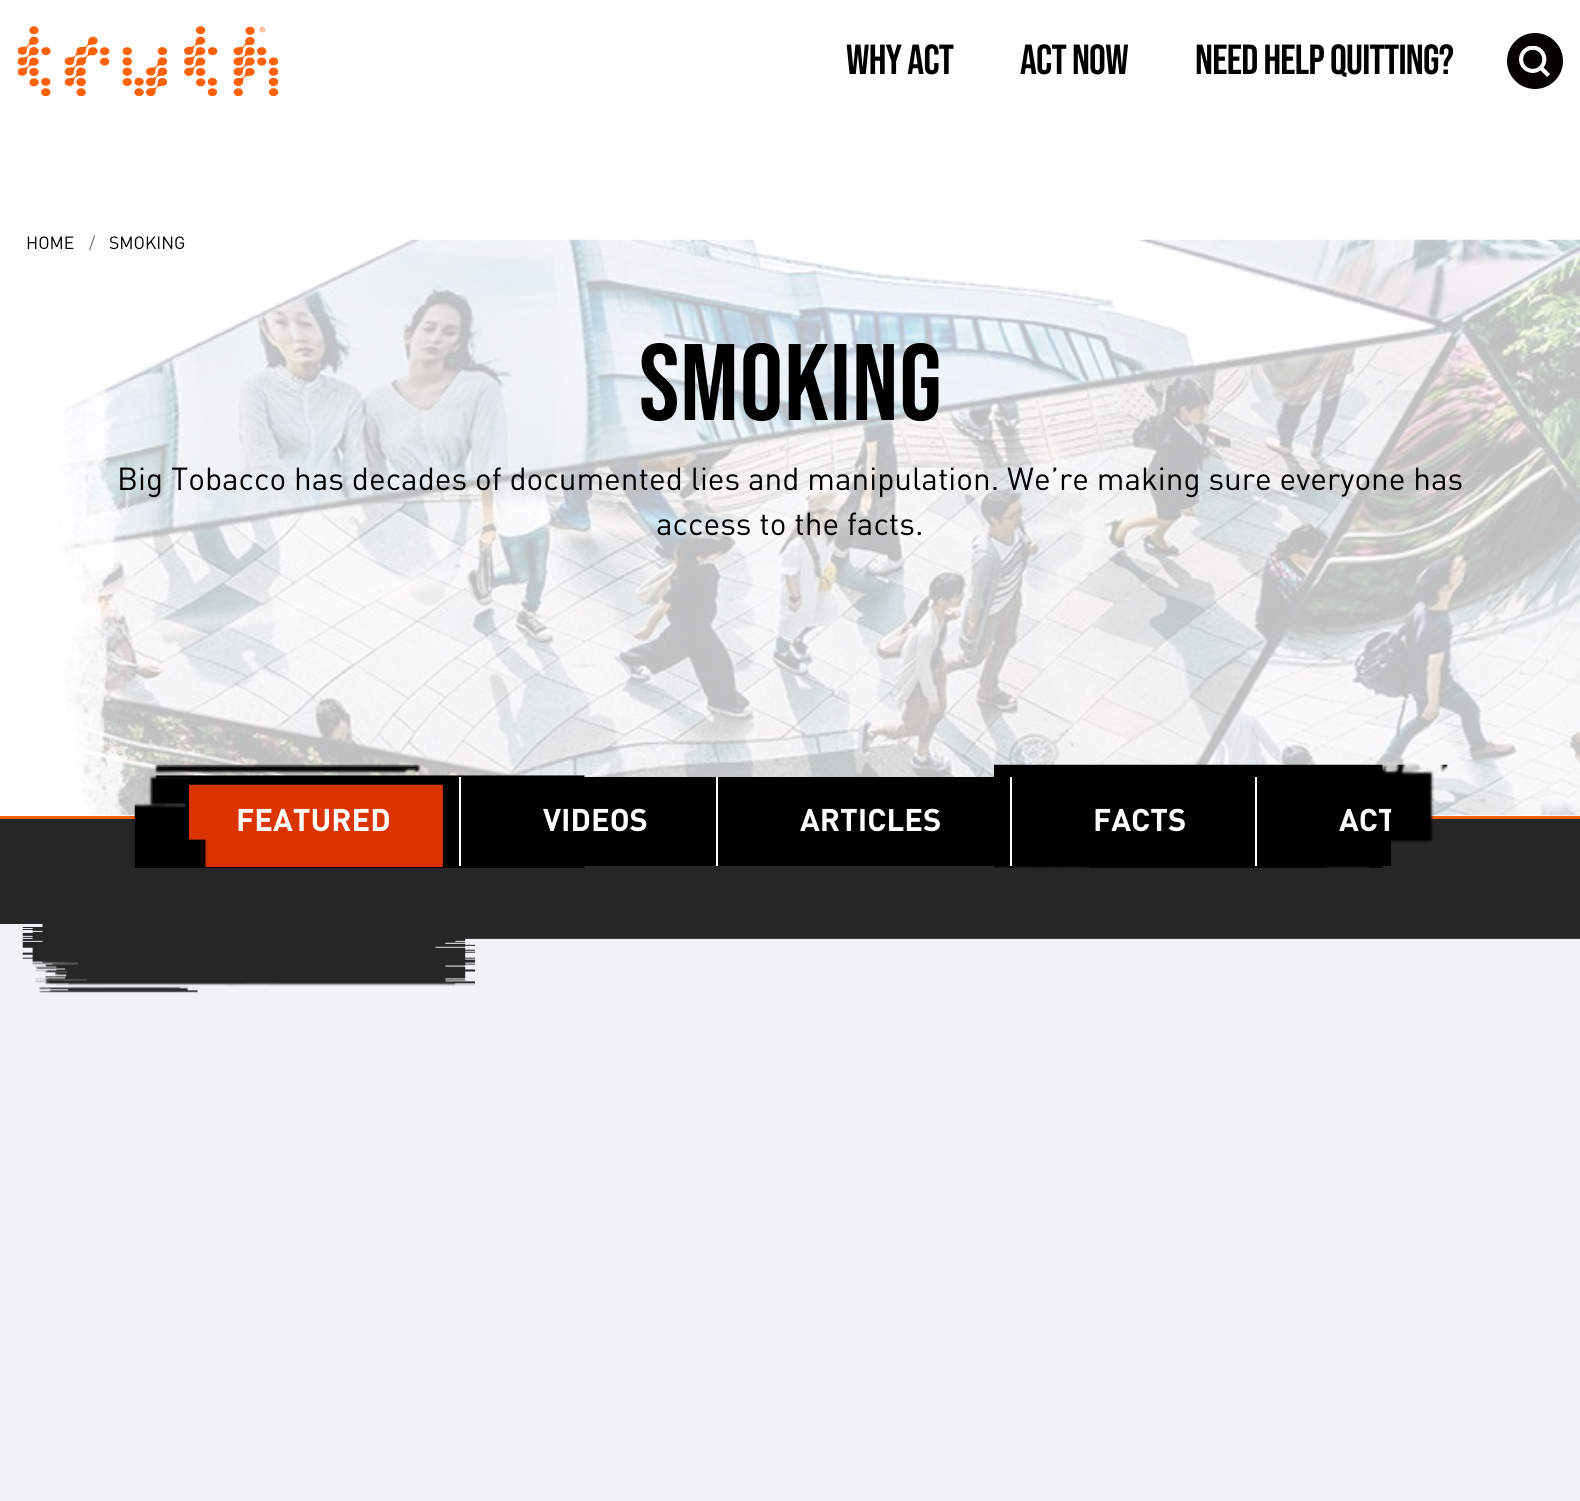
#include <cairo/cairo.h>
#include <math.h>
#include <stddef.h>

static cairo_t *cr;

static void use_color(int r, int g, int b) {
  cairo_set_source_rgb(cr, r / 255.0, g / 255.0, b / 255.0);
}

static void text(double x, double y, const char *s, const char *family, double size, int italic, int bold, int r, int g, int b) {
  cairo_select_font_face(cr, family, italic ? CAIRO_FONT_SLANT_ITALIC : CAIRO_FONT_SLANT_NORMAL,
    bold ? CAIRO_FONT_WEIGHT_BOLD : CAIRO_FONT_WEIGHT_NORMAL);
  cairo_set_font_size(cr, size);
  use_color(r, g, b);
  cairo_move_to(cr, x, y);
  cairo_show_text(cr, s);
}

static void spaced_text(double x, double y, const char *s, double letter, double word) {
  cairo_move_to(cr, x, y);
  while (*s) {
    char ch[5] = {0};
    int n = 0;
    do ch[n++] = *s++; while ((*s & 0xC0) == 0x80);
    cairo_show_text(cr, ch);
    cairo_rel_move_to(cr, letter + word * (*ch == ' '), 0);
  }
}

static void box(double x, double y, double w, double h, int r, int g, int b) {
  use_color(r, g, b);
  cairo_rectangle(cr, x, y, w, h);
  cairo_fill(cr);
}

static void picture(const char *path, double x, double y, double w, double h) {
  cairo_surface_t *image = cairo_image_surface_create_from_png(path);
  cairo_save(cr);
  cairo_set_source_surface(cr, image, x, y);
  cairo_rectangle(cr, x, y, w, h);
  cairo_fill(cr);
  cairo_restore(cr);
  cairo_surface_destroy(image);
}

static void draw(void) {
  use_color(255, 255, 255);
  cairo_paint(cr);
  picture("img_01.png", 18, 26, 260, 70);
  use_color(5, 3, 1);
  cairo_arc(cr, 1535, 61, 28, 0, 2 * M_PI);
  cairo_fill(cr);
  picture("img_02.png", 1519, 46, 31, 31);
  box(0, 816, 1580, 3, 255, 97, 6);
  picture("img_03.png", 57, 239, 1523, 577);
  box(0, 924, 1580, 577, 242, 241, 246);
  box(0, 819, 1580, 105, 38, 38, 38);
  picture("img_04.png", 134, 764, 1314, 104);
  box(189, 777, 1202, 89, 0, 0, 0);
  box(459, 777, 2, 89, 255, 255, 255);
  picture("img_05.png", 189, 784, 254, 83);
  box(716, 777, 2, 89, 255, 255, 255);
  box(1010, 777, 2, 89, 255, 255, 255);
  box(1255, 777, 2, 89, 255, 255, 255);
  picture("img_06.png", 22, 924, 1558, 69);
  cairo_select_font_face(cr, "Bebas Neue", CAIRO_FONT_SLANT_NORMAL, CAIRO_FONT_WEIGHT_NORMAL);
  cairo_set_font_size(cr, 42);
  use_color(0, 0, 0);
  spaced_text(846, 74, "Why Act", -0.75, 0);
  spaced_text(1020, 74, "Act Now", -0.75, 0);
  spaced_text(1195, 74, "Need Help Quitting?", -0.75, 0);
  text(26, 249, "HOME", "Din", 17.5, 0, 0, 0, 0, 0);
  text(89, 249, "/", "Din", 17.5, 0, 0, 108, 117, 125);
  text(109, 249, "SMOKING", "Din", 17.5, 0, 0, 0, 0, 0);
  cairo_select_font_face(cr, "Bebas Neue", CAIRO_FONT_SLANT_NORMAL, CAIRO_FONT_WEIGHT_NORMAL);
  cairo_set_font_size(cr, 108.5);
  spaced_text(639, 420, "Smoking", 1, 0);
  text(117, 490, "Big Tobacco has decades of documented lies and manipulation. We’re making sure everyone has", "Din", 31.5, 0, 0, 0, 0, 0);
  text(656, 535, "access to the facts.", "Din", 31.5, 0, 0, 0, 0, 0);
  text(236, 831, "FEATURED", "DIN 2", 31, 0, 0, 255, 255, 255);
  text(543, 831, "VIDEOS", "DIN 2", 31, 0, 0, 255, 255, 255);
  text(800, 831, "ARTICLES", "DIN 2", 31, 0, 0, 255, 255, 255);
  text(1093, 831, "FACTS", "DIN 2", 31, 0, 0, 255, 255, 255);
  cairo_save(cr);
  cairo_rectangle(cr, 189, 777, 1202, 89);
  cairo_clip(cr);
  text(1339, 831, "ACT", "DIN 2", 31, 0, 0, 255, 255, 255);
  cairo_restore(cr);
}

int main(void) {
  cairo_surface_t *surface = cairo_image_surface_create(CAIRO_FORMAT_RGB24, 1580, 1501);
  cr = cairo_create(surface);
  cairo_font_options_t *options = cairo_font_options_create();
  cairo_font_options_set_hint_metrics(options, CAIRO_HINT_METRICS_OFF);
  cairo_font_options_set_hint_style(options, CAIRO_HINT_STYLE_NONE);
  cairo_set_font_options(cr, options);
  cairo_set_miter_limit(cr, 4);
  draw();
  cairo_surface_write_to_png(surface, "out.png");
  cairo_font_options_destroy(options);
  cairo_destroy(cr);
  cairo_surface_destroy(surface);
  return 0;
}
